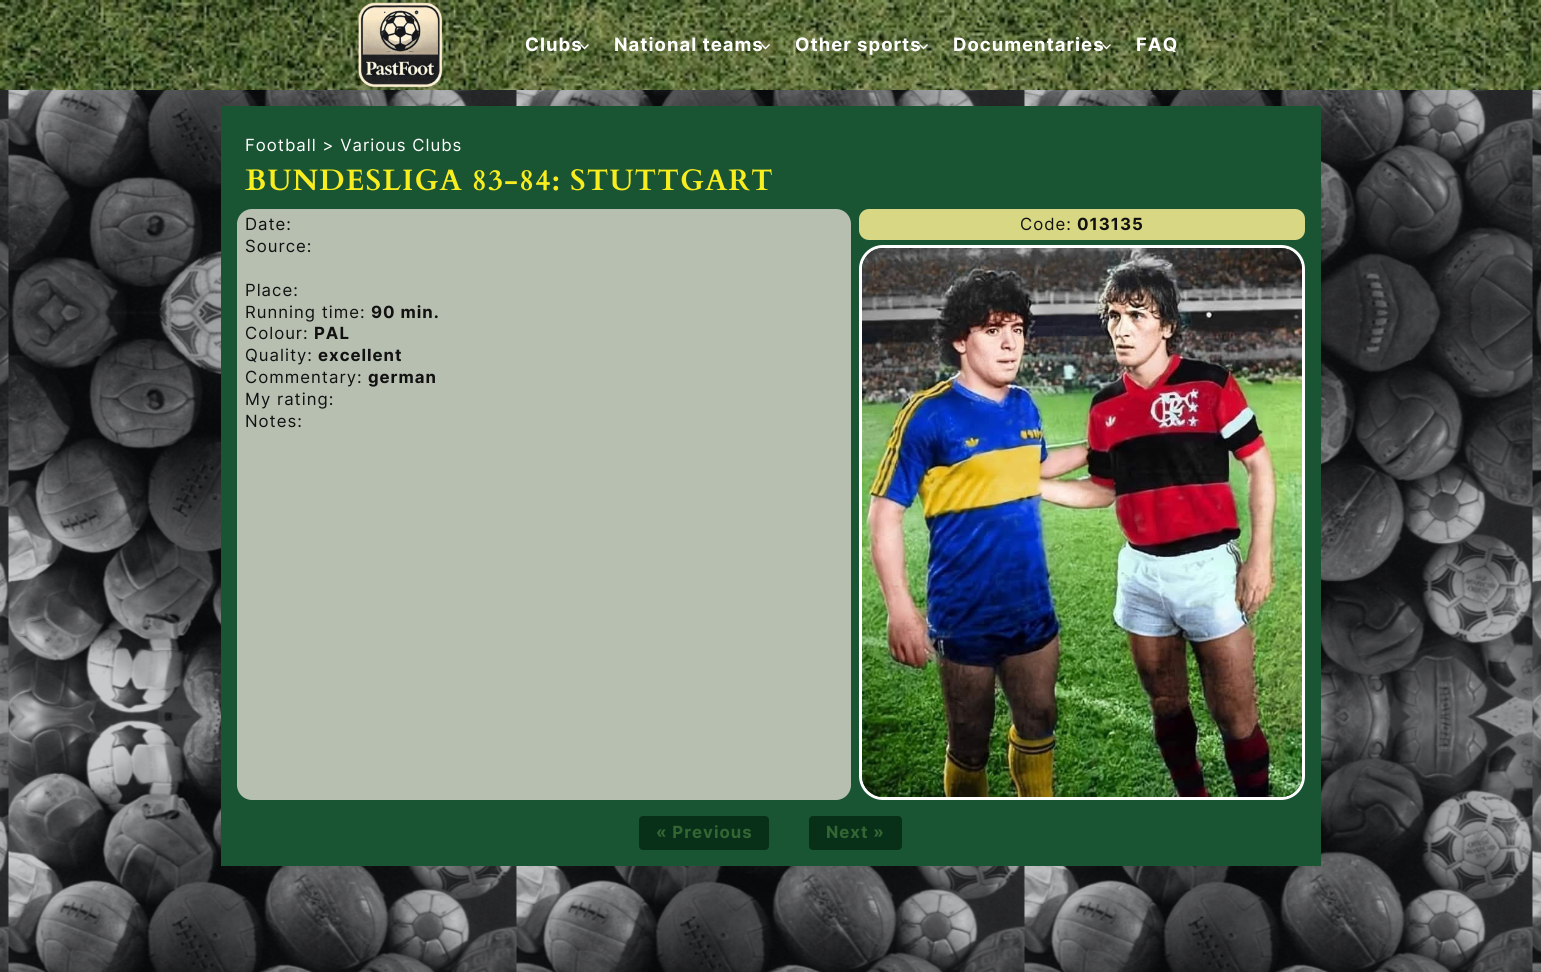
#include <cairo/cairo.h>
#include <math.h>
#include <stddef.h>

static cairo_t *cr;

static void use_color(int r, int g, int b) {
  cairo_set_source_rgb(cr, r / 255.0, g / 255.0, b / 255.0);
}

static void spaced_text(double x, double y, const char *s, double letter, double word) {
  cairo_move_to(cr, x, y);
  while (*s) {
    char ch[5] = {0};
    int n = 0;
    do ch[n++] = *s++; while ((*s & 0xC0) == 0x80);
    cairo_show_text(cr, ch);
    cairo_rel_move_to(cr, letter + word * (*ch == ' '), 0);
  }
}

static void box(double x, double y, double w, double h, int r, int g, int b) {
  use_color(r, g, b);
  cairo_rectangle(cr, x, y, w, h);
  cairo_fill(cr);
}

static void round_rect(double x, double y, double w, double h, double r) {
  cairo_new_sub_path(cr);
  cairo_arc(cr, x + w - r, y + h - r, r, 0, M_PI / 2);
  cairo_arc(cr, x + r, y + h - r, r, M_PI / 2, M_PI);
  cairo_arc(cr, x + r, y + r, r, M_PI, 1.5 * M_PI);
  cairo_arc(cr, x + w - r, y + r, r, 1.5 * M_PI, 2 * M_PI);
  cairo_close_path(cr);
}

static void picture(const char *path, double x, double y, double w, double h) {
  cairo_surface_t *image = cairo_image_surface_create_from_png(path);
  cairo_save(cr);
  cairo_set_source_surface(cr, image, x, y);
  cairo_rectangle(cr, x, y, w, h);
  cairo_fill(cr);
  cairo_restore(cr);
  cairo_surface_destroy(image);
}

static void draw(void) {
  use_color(255, 255, 255);
  cairo_paint(cr);
  picture("img_01.png", 0, 90, 1541, 882);
  picture("img_02.png", 0, 0, 1541, 90);
  picture("img_03.png", 358, 2, 85, 86);
  cairo_new_path(cr);
  cairo_move_to(cr, 580.5, 44.5);
  cairo_line_to(cr, 584.5, 48.5);
  cairo_line_to(cr, 588.5, 44.5);
  use_color(255, 255, 255);
  cairo_set_line_width(cr, 1.4);
  cairo_stroke(cr);
  cairo_new_path(cr);
  cairo_move_to(cr, 761.5, 44.5);
  cairo_line_to(cr, 765.5, 48.5);
  cairo_line_to(cr, 769.5, 44.5);
  cairo_stroke(cr);
  cairo_new_path(cr);
  cairo_move_to(cr, 919.5, 44.5);
  cairo_line_to(cr, 923.5, 48.5);
  cairo_line_to(cr, 927.5, 44.5);
  cairo_stroke(cr);
  cairo_new_path(cr);
  cairo_move_to(cr, 1102.5, 44.5);
  cairo_line_to(cr, 1106.5, 48.5);
  cairo_line_to(cr, 1110.5, 44.5);
  cairo_stroke(cr);
  box(221, 106, 1100, 760, 25, 84, 51);
  use_color(183, 191, 177);
  round_rect(237, 209, 614, 591, 15);
  cairo_fill(cr);
  use_color(216, 216, 132);
  round_rect(859, 209, 446, 31, 10);
  cairo_fill(cr);
  round_rect(860.5, 246.5, 443, 552, 22.5);
  use_color(255, 255, 255);
  cairo_set_line_width(cr, 3);
  cairo_stroke(cr);
  picture("img_04.png", 862, 248, 440, 549);
  use_color(8, 48, 24);
  round_rect(639, 816, 130, 34, 4);
  cairo_fill(cr);
  round_rect(809, 816, 93, 34, 4);
  cairo_fill(cr);
  cairo_select_font_face(cr, "Inter", CAIRO_FONT_SLANT_NORMAL, CAIRO_FONT_WEIGHT_BOLD);
  cairo_set_font_size(cr, 18.5);
  use_color(255, 255, 255);
  spaced_text(525, 51, "Clubs", 1, 0);
  spaced_text(614, 51, "National teams", 1, 0);
  spaced_text(795, 51, "Other sports", 1, 0);
  spaced_text(953, 51, "Documentaries", 1, 0);
  spaced_text(1136, 51, "FAQ", 1, 0);
  cairo_select_font_face(cr, "Inter", CAIRO_FONT_SLANT_NORMAL, CAIRO_FONT_WEIGHT_NORMAL);
  cairo_set_font_size(cr, 16.75);
  spaced_text(245, 151, "Football > Various Clubs", 1, 0);
  cairo_select_font_face(cr, "Cardo", CAIRO_FONT_SLANT_NORMAL, CAIRO_FONT_WEIGHT_BOLD);
  cairo_set_font_size(cr, 29.6);
  use_color(247, 237, 31);
  spaced_text(245, 190, "BUNDESLIGA 83-84: STUTTGART", 1, 0);
  cairo_select_font_face(cr, "Inter", CAIRO_FONT_SLANT_NORMAL, CAIRO_FONT_WEIGHT_NORMAL);
  cairo_set_font_size(cr, 16.75);
  use_color(17, 17, 17);
  spaced_text(245, 230, "Date:", 1, 0);
  spaced_text(245, 252, "Source:", 1, 0);
  spaced_text(245, 296, "Place:", 1, 0);
  spaced_text(245, 318, "Running time:", 1, 0);
  cairo_select_font_face(cr, "Inter", CAIRO_FONT_SLANT_NORMAL, CAIRO_FONT_WEIGHT_BOLD);
  spaced_text(371, 318, "90 min.", 1, 0);
  cairo_select_font_face(cr, "Inter", CAIRO_FONT_SLANT_NORMAL, CAIRO_FONT_WEIGHT_NORMAL);
  spaced_text(245, 339, "Colour:", 1, 0);
  cairo_select_font_face(cr, "Inter", CAIRO_FONT_SLANT_NORMAL, CAIRO_FONT_WEIGHT_BOLD);
  spaced_text(314, 339, "PAL", 1, 0);
  cairo_select_font_face(cr, "Inter", CAIRO_FONT_SLANT_NORMAL, CAIRO_FONT_WEIGHT_NORMAL);
  spaced_text(245, 361, "Quality:", 1, 0);
  cairo_select_font_face(cr, "Inter", CAIRO_FONT_SLANT_NORMAL, CAIRO_FONT_WEIGHT_BOLD);
  spaced_text(318, 361, "excellent", 1, 0);
  cairo_select_font_face(cr, "Inter", CAIRO_FONT_SLANT_NORMAL, CAIRO_FONT_WEIGHT_NORMAL);
  spaced_text(245, 383, "Commentary:", 1, 0);
  cairo_select_font_face(cr, "Inter", CAIRO_FONT_SLANT_NORMAL, CAIRO_FONT_WEIGHT_BOLD);
  spaced_text(368, 383, "german", 1, 0);
  cairo_select_font_face(cr, "Inter", CAIRO_FONT_SLANT_NORMAL, CAIRO_FONT_WEIGHT_NORMAL);
  spaced_text(245, 405, "My rating:", 1, 0);
  spaced_text(245, 427, "Notes:", 1, 0);
  spaced_text(1020, 230, "Code:", 1, 0);
  cairo_select_font_face(cr, "Inter", CAIRO_FONT_SLANT_NORMAL, CAIRO_FONT_WEIGHT_BOLD);
  spaced_text(1077, 230, "013135", 1, 0);
  use_color(51, 102, 51);
  spaced_text(656, 838, "« Previous", 1, 0);
  spaced_text(826, 838, "Next »", 1, 0);
}

int main(void) {
  cairo_surface_t *surface = cairo_image_surface_create(CAIRO_FORMAT_RGB24, 1541, 972);
  cr = cairo_create(surface);
  cairo_font_options_t *options = cairo_font_options_create();
  cairo_font_options_set_hint_metrics(options, CAIRO_HINT_METRICS_OFF);
  cairo_font_options_set_hint_style(options, CAIRO_HINT_STYLE_NONE);
  cairo_set_font_options(cr, options);
  cairo_set_miter_limit(cr, 4);
  draw();
  cairo_surface_write_to_png(surface, "out.png");
  cairo_font_options_destroy(options);
  cairo_destroy(cr);
  cairo_surface_destroy(surface);
  return 0;
}
